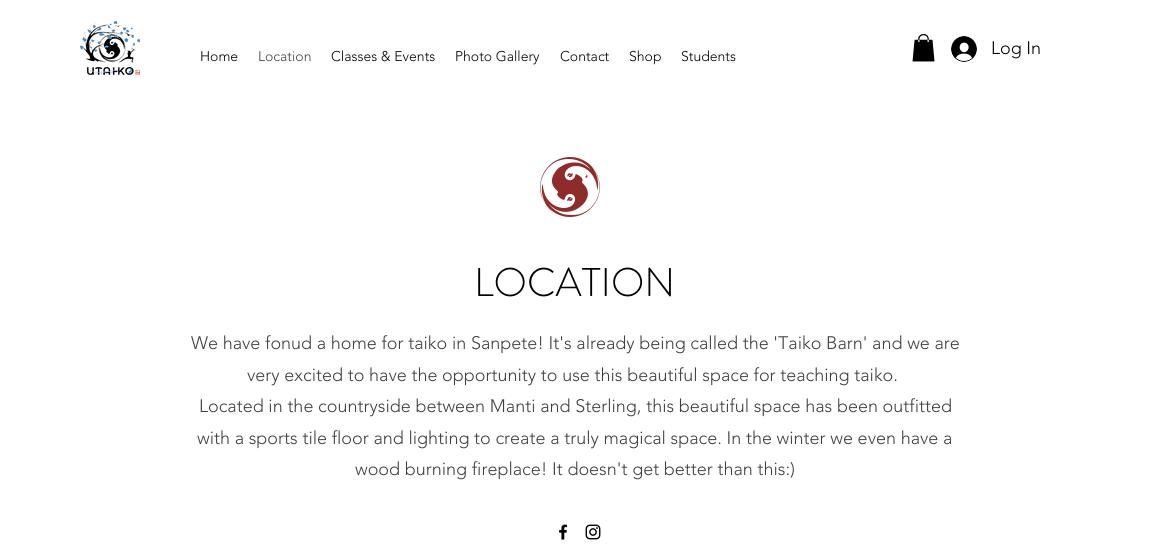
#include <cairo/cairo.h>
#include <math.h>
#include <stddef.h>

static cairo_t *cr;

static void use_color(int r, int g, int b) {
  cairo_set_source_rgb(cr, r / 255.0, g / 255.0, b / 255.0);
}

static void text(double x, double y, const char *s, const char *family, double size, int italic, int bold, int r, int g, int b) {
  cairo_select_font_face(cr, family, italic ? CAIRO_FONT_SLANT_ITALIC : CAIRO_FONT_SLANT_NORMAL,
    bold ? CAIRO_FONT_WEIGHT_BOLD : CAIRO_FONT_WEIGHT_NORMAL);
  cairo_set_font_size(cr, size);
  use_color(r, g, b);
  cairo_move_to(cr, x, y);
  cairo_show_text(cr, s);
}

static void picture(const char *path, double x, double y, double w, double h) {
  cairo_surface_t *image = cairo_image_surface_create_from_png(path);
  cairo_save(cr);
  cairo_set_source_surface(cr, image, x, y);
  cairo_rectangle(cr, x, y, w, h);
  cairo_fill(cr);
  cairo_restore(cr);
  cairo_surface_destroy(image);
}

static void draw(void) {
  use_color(255, 255, 255);
  cairo_paint(cr);
  picture("img_01.png", 80, 21, 60, 55);
  picture("img_02.png", 912, 34, 23, 28);
  picture("img_03.png", 951, 36, 26, 26);
  picture("img_04.png", 540, 157, 60, 60);
  picture("img_05.png", 559, 524, 9, 16);
  picture("img_06.png", 585, 524, 16, 16);
  text(200, 61, "Home", "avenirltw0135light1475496 Light", 14, 0, 0, 0, 0, 0);
  text(258, 61, "Location", "avenirltw0135light1475496 Light", 14, 0, 0, 64, 64, 64);
  text(331, 61, "Classes & Events", "avenirltw0135light1475496 Light", 14, 0, 0, 0, 0, 0);
  text(455, 61, "Photo Gallery", "avenirltw0135light1475496 Light", 14, 0, 0, 0, 0, 0);
  text(560, 61, "Contact", "avenirltw0135light1475496 Light", 14, 0, 0, 0, 0, 0);
  text(629, 61, "Shop", "avenirltw0135light1475496 Light", 14, 0, 0, 0, 0, 0);
  text(681, 61, "Students", "avenirltw0135light1475496 Light", 14, 0, 0, 0, 0, 0);
  text(991, 54, "Log In", "avenirltw0135light1475496 Light", 18, 0, 0, 0, 0, 0);
  text(474, 296, "LOCATION", "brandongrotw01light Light", 40, 0, 0, 0, 0, 0);
  text(191, 349, "We have fonud a home for taiko in Sanpete! It's already being called the 'Taiko Barn' and we are", "avenirltw0135light1475496 Light", 18, 0, 0, 64, 64, 64);
  text(247, 381, "very excited to have the opportunity to use this beautiful space for teaching taiko.", "avenirltw0135light1475496 Light", 18, 0, 0, 64, 64, 64);
  text(199, 412, "Located in the countryside between Manti and Sterling, this beautiful space has been outfitted", "avenirltw0135light1475496 Light", 18, 0, 0, 64, 64, 64);
  text(197, 444, "with a sports tile floor and lighting to create a truly magical space. In the winter we even have a", "avenirltw0135light1475496 Light", 18, 0, 0, 64, 64, 64);
  text(355, 475, "wood burning fireplace! It doesn't get better than this:)", "avenirltw0135light1475496 Light", 18, 0, 0, 64, 64, 64);
}

int main(void) {
  cairo_surface_t *surface = cairo_image_surface_create(CAIRO_FORMAT_RGB24, 1150, 549);
  cr = cairo_create(surface);
  cairo_font_options_t *options = cairo_font_options_create();
  cairo_font_options_set_hint_metrics(options, CAIRO_HINT_METRICS_OFF);
  cairo_font_options_set_hint_style(options, CAIRO_HINT_STYLE_NONE);
  cairo_set_font_options(cr, options);
  cairo_set_miter_limit(cr, 4);
  draw();
  cairo_surface_write_to_png(surface, "out.png");
  cairo_font_options_destroy(options);
  cairo_destroy(cr);
  cairo_surface_destroy(surface);
  return 0;
}
